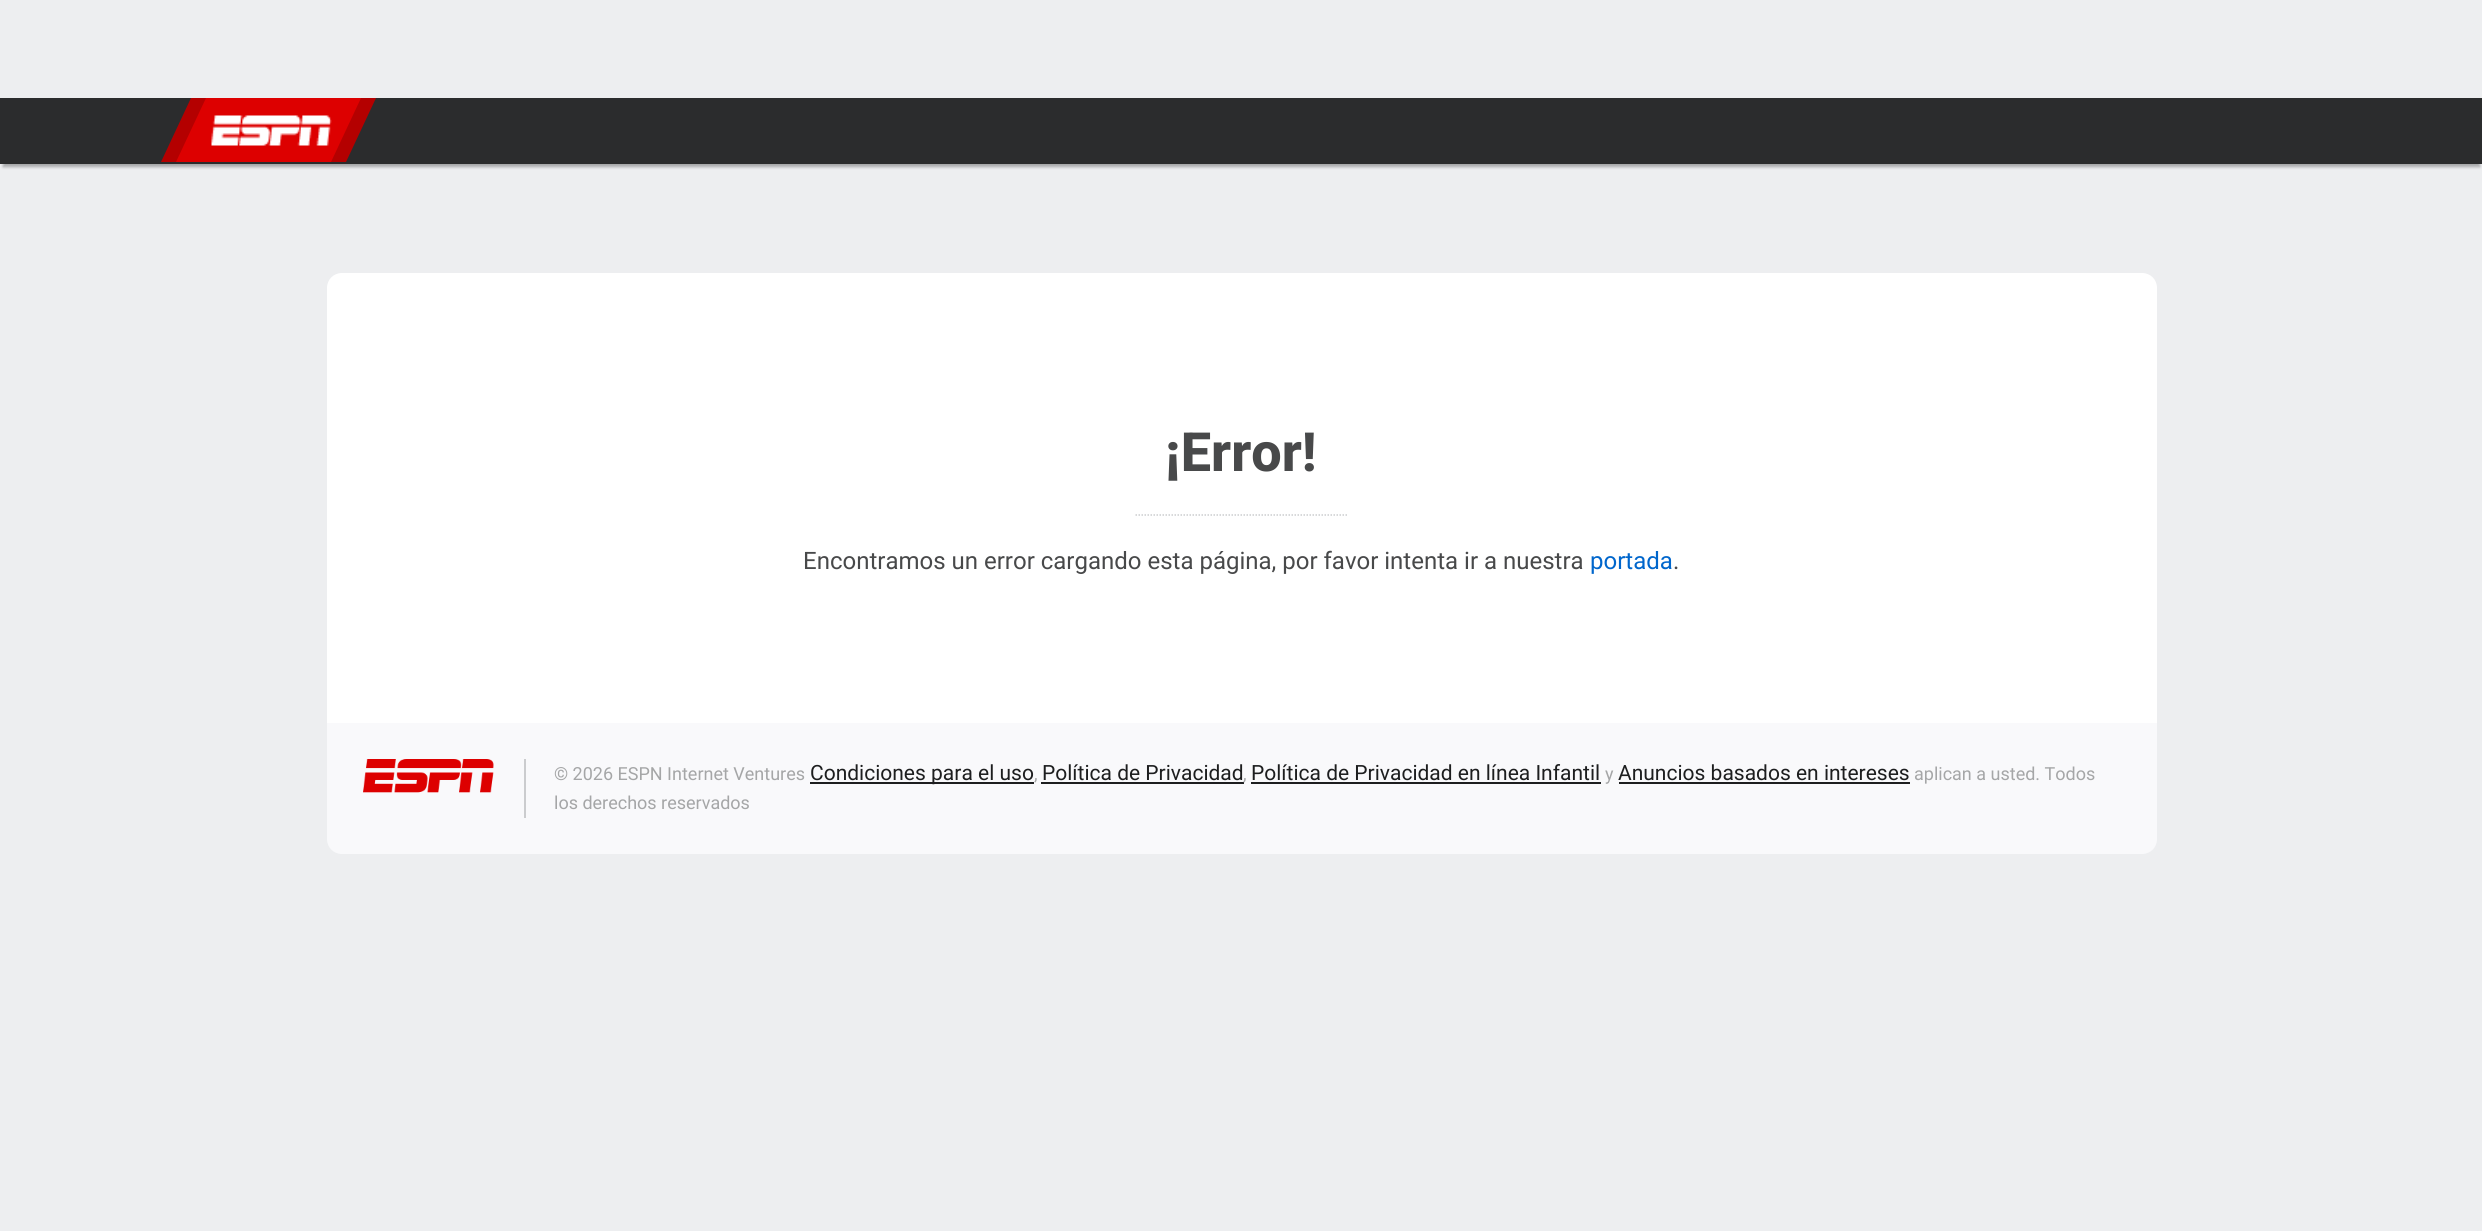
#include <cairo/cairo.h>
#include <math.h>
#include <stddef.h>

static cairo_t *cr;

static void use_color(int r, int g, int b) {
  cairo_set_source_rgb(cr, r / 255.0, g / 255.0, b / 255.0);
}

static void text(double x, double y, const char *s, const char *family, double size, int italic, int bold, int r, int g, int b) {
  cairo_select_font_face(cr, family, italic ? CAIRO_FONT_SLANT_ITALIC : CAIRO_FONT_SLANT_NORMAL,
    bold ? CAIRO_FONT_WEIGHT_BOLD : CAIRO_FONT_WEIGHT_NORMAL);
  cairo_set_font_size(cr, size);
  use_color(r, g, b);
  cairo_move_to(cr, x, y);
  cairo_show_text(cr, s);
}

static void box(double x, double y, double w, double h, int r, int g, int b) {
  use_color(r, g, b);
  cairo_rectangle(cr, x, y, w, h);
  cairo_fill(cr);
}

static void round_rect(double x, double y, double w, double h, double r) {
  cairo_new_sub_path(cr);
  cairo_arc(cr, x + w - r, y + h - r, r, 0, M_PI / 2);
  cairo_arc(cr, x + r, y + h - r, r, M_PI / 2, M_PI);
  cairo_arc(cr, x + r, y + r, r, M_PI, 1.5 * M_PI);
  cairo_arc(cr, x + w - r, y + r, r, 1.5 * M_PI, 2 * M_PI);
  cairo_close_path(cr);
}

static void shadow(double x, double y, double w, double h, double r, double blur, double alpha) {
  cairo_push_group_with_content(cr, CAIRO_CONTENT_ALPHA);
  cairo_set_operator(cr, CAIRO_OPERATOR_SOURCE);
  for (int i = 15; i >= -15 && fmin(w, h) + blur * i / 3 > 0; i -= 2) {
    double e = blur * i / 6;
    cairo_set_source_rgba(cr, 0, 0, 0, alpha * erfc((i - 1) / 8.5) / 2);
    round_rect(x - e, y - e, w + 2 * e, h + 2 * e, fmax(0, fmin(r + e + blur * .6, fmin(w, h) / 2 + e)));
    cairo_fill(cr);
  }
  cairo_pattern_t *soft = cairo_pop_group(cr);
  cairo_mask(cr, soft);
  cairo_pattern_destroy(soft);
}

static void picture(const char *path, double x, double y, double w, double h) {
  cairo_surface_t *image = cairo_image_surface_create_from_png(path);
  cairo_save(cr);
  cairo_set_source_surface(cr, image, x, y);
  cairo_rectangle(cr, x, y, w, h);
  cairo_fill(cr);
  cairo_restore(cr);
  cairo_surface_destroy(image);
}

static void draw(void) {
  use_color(237, 238, 240);
  cairo_paint(cr);
  use_color(0, 0, 0);
  shadow(3, 107, 2477, 60, 0, 1.5, 0.3);
  box(0, 98, 2482, 66, 43, 44, 45);
  use_color(180, 0, 0);
  cairo_new_path(cr);
  cairo_move_to(cr, 191, 98);
  cairo_line_to(cr, 376, 98);
  cairo_line_to(cr, 346, 162);
  cairo_line_to(cr, 161, 162);
  cairo_close_path(cr);
  cairo_fill(cr);
  use_color(221, 0, 0);
  cairo_new_path(cr);
  cairo_move_to(cr, 206, 98);
  cairo_line_to(cr, 361, 98);
  cairo_line_to(cr, 331, 162);
  cairo_line_to(cr, 176, 162);
  cairo_close_path(cr);
  cairo_fill(cr);
  picture("img_01.png", 211, 115, 121, 31);
  use_color(255, 255, 255);
  cairo_new_path(cr);
  cairo_move_to(cr, 342, 273);
  cairo_line_to(cr, 2142, 273);
  cairo_curve_to(cr, 2150.5, 273, 2157, 279.5, 2157, 288);
  cairo_line_to(cr, 2157, 723);
  cairo_line_to(cr, 327, 723);
  cairo_line_to(cr, 327, 288);
  cairo_curve_to(cr, 327, 279.5, 333.5, 273, 342, 273);
  cairo_close_path(cr);
  cairo_fill(cr);
  cairo_new_path(cr);
  cairo_move_to(cr, 1135.5, 515);
  cairo_line_to(cr, 1347, 515);
  use_color(203, 204, 206);
  cairo_set_line_width(cr, 1.5);
  cairo_set_dash(cr, (double[]){1.5, 1.5}, 2, 0);
  cairo_stroke(cr);
  use_color(249, 249, 251);
  cairo_new_path(cr);
  cairo_move_to(cr, 327, 723);
  cairo_line_to(cr, 2157, 723);
  cairo_line_to(cr, 2157, 839);
  cairo_curve_to(cr, 2157, 847.5, 2150.5, 854, 2142, 854);
  cairo_line_to(cr, 342, 854);
  cairo_curve_to(cr, 333.5, 854, 327, 847.5, 327, 839);
  cairo_close_path(cr);
  cairo_fill(cr);
  picture("img_02.png", 363, 759, 131, 34);
  box(524, 759, 2, 59, 203, 204, 206);
  box(810, 782, 224, 2, 29, 30, 31);
  box(1041, 782, 203, 2, 29, 30, 31);
  box(1251, 782, 350, 2, 29, 30, 31);
  box(1619, 782, 291, 2, 29, 30, 31);
  text(1165, 471, "¡Error!", "Roboto ExtraBold", 54, 0, 0, 72, 73, 74);
  text(803, 569, "Encontramos un error cargando esta página, por favor intenta ir a nuestra", "Roboto", 24, 0, 0, 72, 73, 74);
  text(1590, 569, "portada", "Roboto", 24, 0, 0, 0, 102, 204);
  text(1673, 569, ".", "Roboto", 24, 0, 0, 72, 73, 74);
  text(554, 780, "© 2026 ESPN Internet Ventures", "Roboto", 18, 0, 0, 165, 166, 167);
  text(810, 780, "Condiciones para el uso", "Roboto", 21, 0, 0, 29, 30, 31);
  text(1034, 780, ",", "Roboto", 18, 0, 0, 165, 166, 167);
  text(1042, 780, "Política de Privacidad", "Roboto", 21, 0, 0, 29, 30, 31);
  text(1243, 780, ",", "Roboto", 18, 0, 0, 165, 166, 167);
  text(1251, 780, "Política de Privacidad en línea Infantil", "Roboto", 21, 0, 0, 29, 30, 31);
  text(1605, 780, "y", "Roboto", 18, 0, 0, 165, 166, 167);
  text(1618, 780, "Anuncios basados en intereses", "Roboto", 21, 0, 0, 29, 30, 31);
  text(1914, 780, "aplican a usted. Todos", "Roboto", 18, 0, 0, 165, 166, 167);
  text(554, 809, "los derechos reservados", "Roboto", 18, 0, 0, 165, 166, 167);
}

int main(void) {
  cairo_surface_t *surface = cairo_image_surface_create(CAIRO_FORMAT_RGB24, 2482, 1231);
  cr = cairo_create(surface);
  cairo_font_options_t *options = cairo_font_options_create();
  cairo_font_options_set_hint_metrics(options, CAIRO_HINT_METRICS_OFF);
  cairo_font_options_set_hint_style(options, CAIRO_HINT_STYLE_NONE);
  cairo_set_font_options(cr, options);
  cairo_set_miter_limit(cr, 4);
  draw();
  cairo_surface_write_to_png(surface, "out.png");
  cairo_font_options_destroy(options);
  cairo_destroy(cr);
  cairo_surface_destroy(surface);
  return 0;
}
